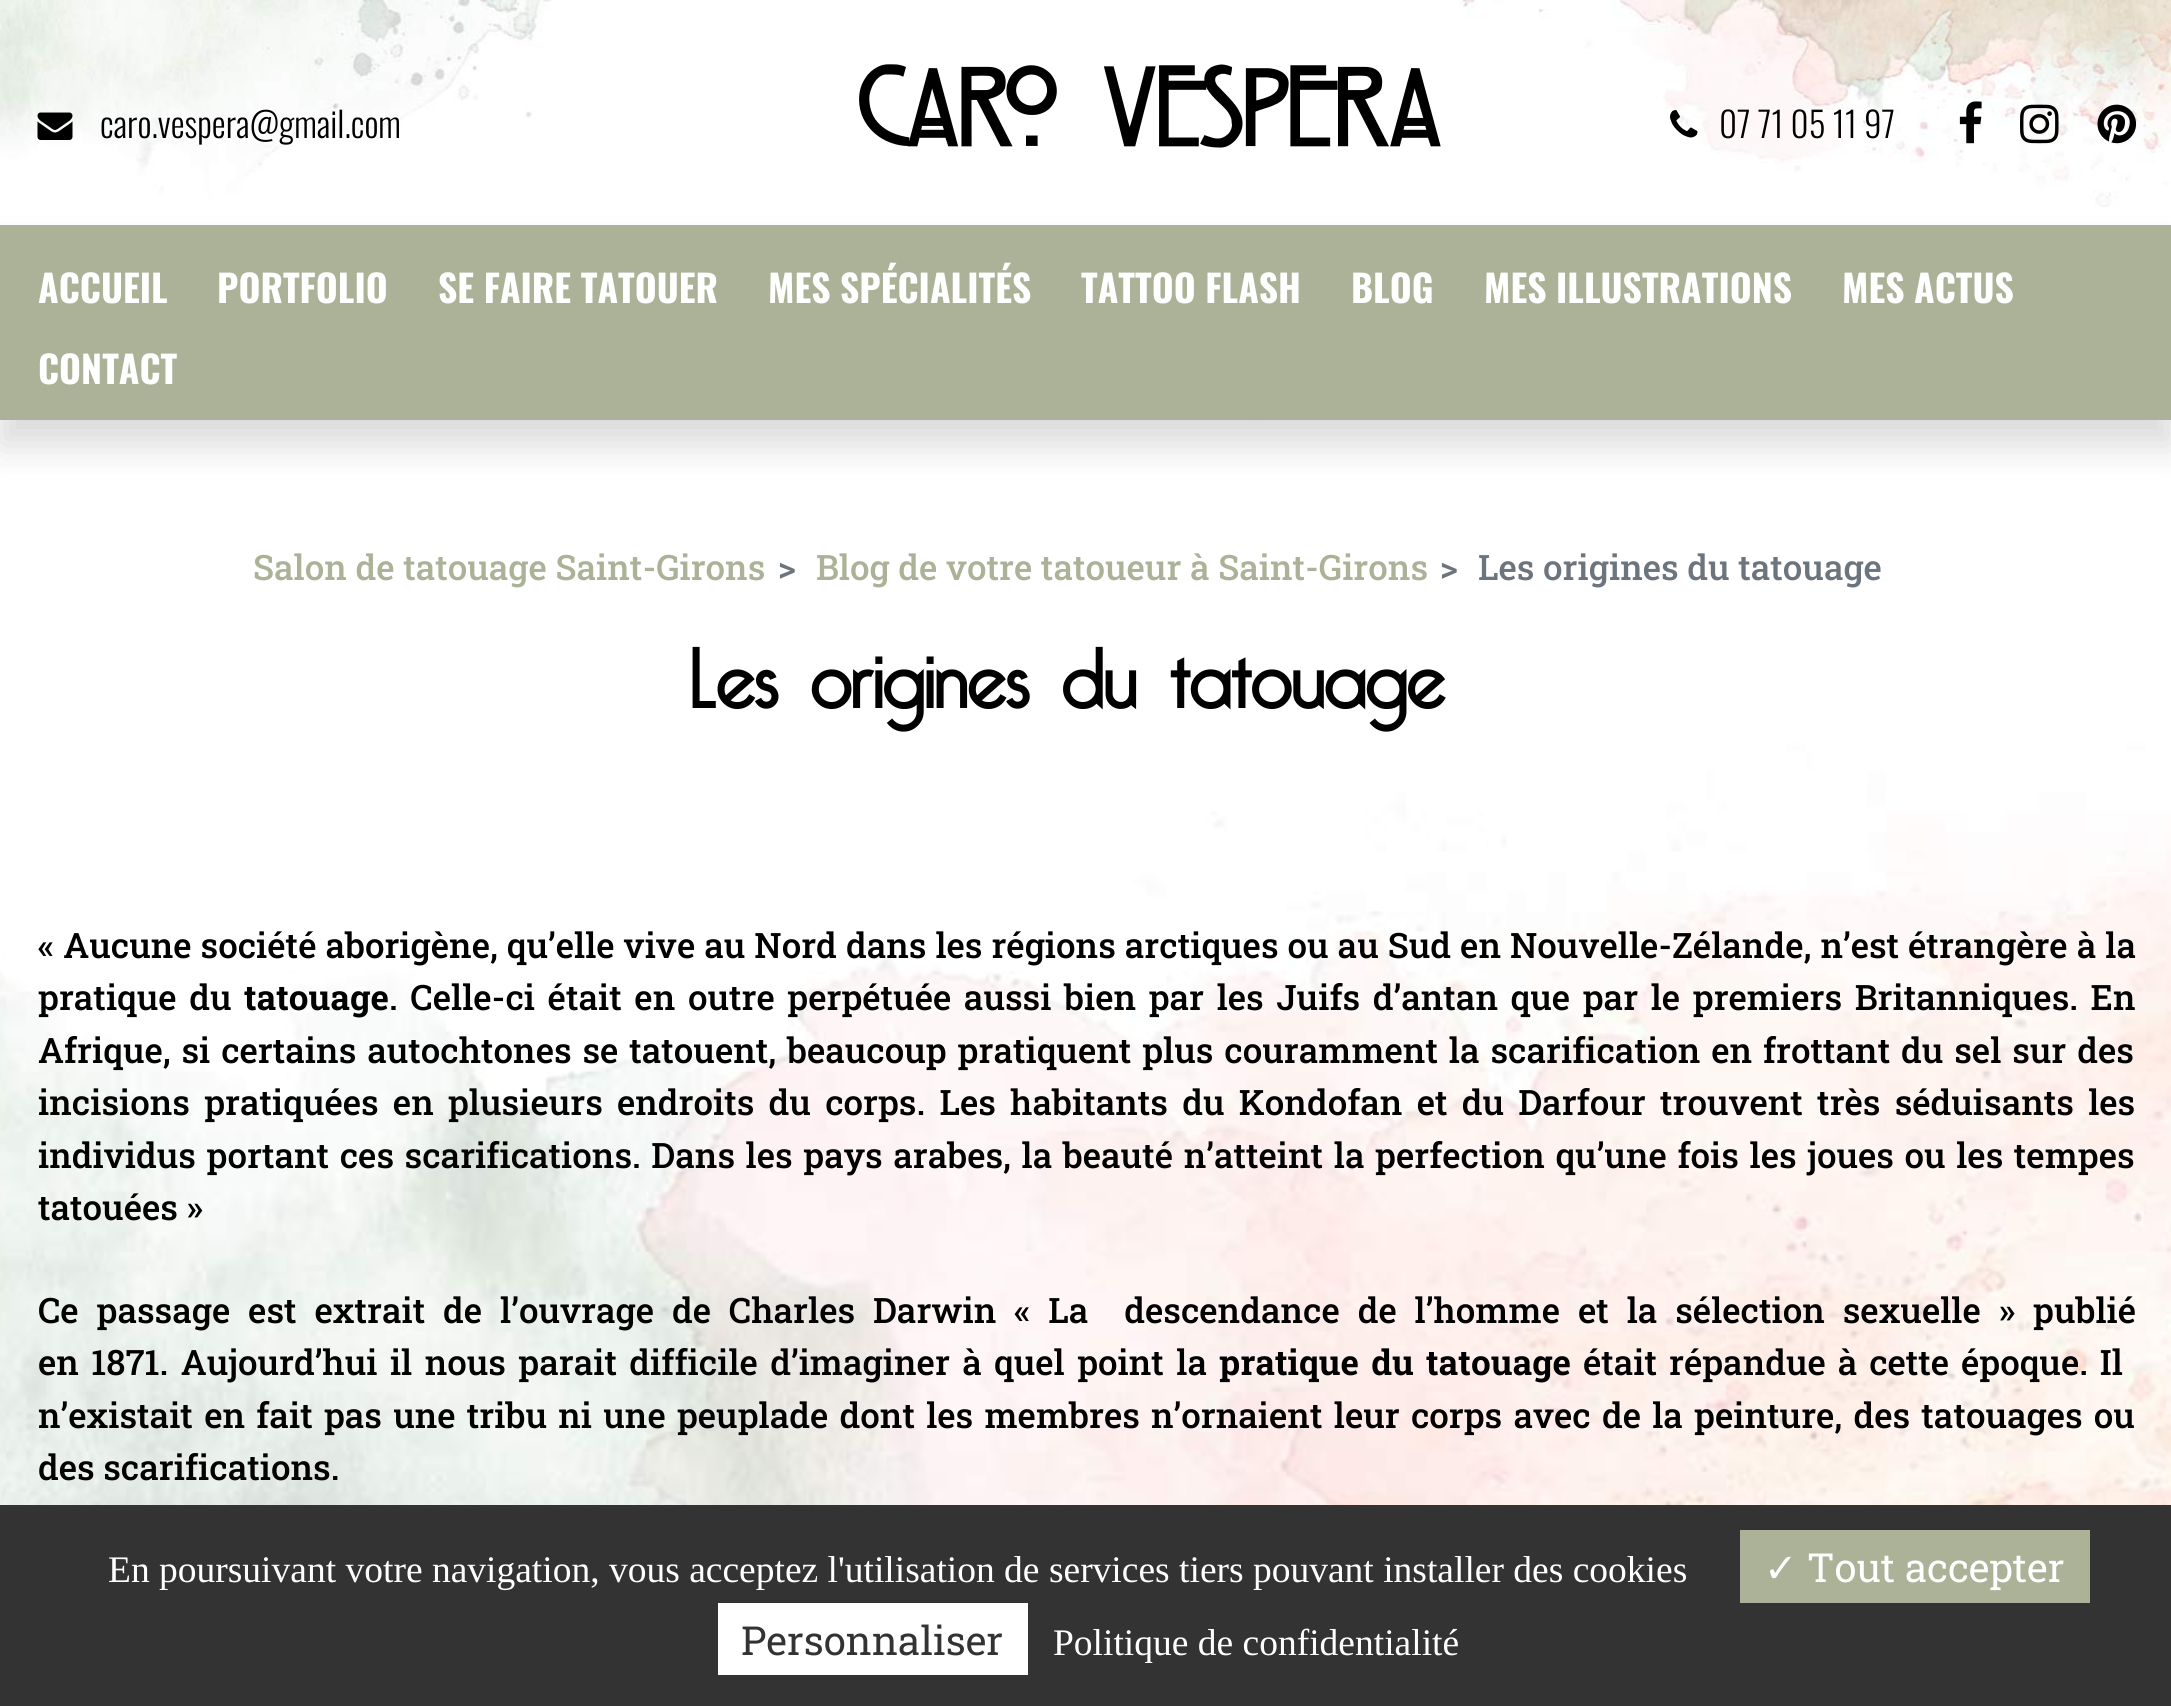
#include <cairo/cairo.h>
#include <math.h>
#include <stddef.h>

static cairo_t *cr;

static void use_color(int r, int g, int b) {
  cairo_set_source_rgb(cr, r / 255.0, g / 255.0, b / 255.0);
}

static void text(double x, double y, const char *s, const char *family, double size, int italic, int bold, int r, int g, int b) {
  cairo_select_font_face(cr, family, italic ? CAIRO_FONT_SLANT_ITALIC : CAIRO_FONT_SLANT_NORMAL,
    bold ? CAIRO_FONT_WEIGHT_BOLD : CAIRO_FONT_WEIGHT_NORMAL);
  cairo_set_font_size(cr, size);
  use_color(r, g, b);
  cairo_move_to(cr, x, y);
  cairo_show_text(cr, s);
}

static void spaced_text(double x, double y, const char *s, double letter, double word) {
  cairo_move_to(cr, x, y);
  while (*s) {
    char ch[5] = {0};
    int n = 0;
    do ch[n++] = *s++; while ((*s & 0xC0) == 0x80);
    cairo_show_text(cr, ch);
    cairo_rel_move_to(cr, letter + word * (*ch == ' '), 0);
  }
}

static void box(double x, double y, double w, double h, int r, int g, int b) {
  use_color(r, g, b);
  cairo_rectangle(cr, x, y, w, h);
  cairo_fill(cr);
}

static void round_rect(double x, double y, double w, double h, double r) {
  cairo_new_sub_path(cr);
  cairo_arc(cr, x + w - r, y + h - r, r, 0, M_PI / 2);
  cairo_arc(cr, x + r, y + h - r, r, M_PI / 2, M_PI);
  cairo_arc(cr, x + r, y + r, r, M_PI, 1.5 * M_PI);
  cairo_arc(cr, x + w - r, y + r, r, 1.5 * M_PI, 2 * M_PI);
  cairo_close_path(cr);
}

static void shadow(double x, double y, double w, double h, double r, double blur, double alpha) {
  cairo_push_group_with_content(cr, CAIRO_CONTENT_ALPHA);
  cairo_set_operator(cr, CAIRO_OPERATOR_SOURCE);
  for (int i = 15; i >= -15 && fmin(w, h) + blur * i / 3 > 0; i -= 2) {
    double e = blur * i / 6;
    cairo_set_source_rgba(cr, 0, 0, 0, alpha * erfc((i - 1) / 8.5) / 2);
    round_rect(x - e, y - e, w + 2 * e, h + 2 * e, fmax(0, fmin(r + e + blur * .6, fmin(w, h) / 2 + e)));
    cairo_fill(cr);
  }
  cairo_pattern_t *soft = cairo_pop_group(cr);
  cairo_mask(cr, soft);
  cairo_pattern_destroy(soft);
}

static void picture(const char *path, double x, double y, double w, double h) {
  cairo_surface_t *image = cairo_image_surface_create_from_png(path);
  cairo_save(cr);
  cairo_set_source_surface(cr, image, x, y);
  cairo_rectangle(cr, x, y, w, h);
  cairo_fill(cr);
  cairo_restore(cr);
  cairo_surface_destroy(image);
}

static void draw(void) {
  use_color(255, 255, 255);
  cairo_paint(cr);
  picture("img_01.png", 0, 0, 2171, 207);
  picture("img_02.png", 37, 112, 36, 28);
  picture("img_03.png", 1670, 110, 28, 28);
  picture("img_04.png", 1959, 101, 23, 43);
  picture("img_05.png", 2020, 104, 39, 40);
  picture("img_06.png", 2097, 104, 40, 40);
  picture("img_08.png", 0, 420, 2171, 1085);
  use_color(0, 0, 0);
  shadow(0, 250, 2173, 195, 0, 19, 0.15);
  box(0, 225, 2171, 195, 171, 178, 151);
  picture("img_07.png", 859, 64, 582, 84);
  box(0, 1505, 2171, 201, 51, 51, 51);
  box(1740, 1530, 350, 73, 171, 178, 151);
  box(718, 1603, 310, 72, 255, 255, 255);
  text(100, 138, "caro.vespera@gmail.com", "Oswald Light", 35, 0, 0, 0, 0, 0);
  text(1719, 138, "07 71 05 11 97", "Oswald Light", 35, 0, 0, 0, 0, 0);
  text(38, 303, "ACCUEIL", "Oswald", 37.5, 0, 1, 255, 255, 255);
  text(217, 303, "PORTFOLIO", "Oswald", 37.5, 0, 1, 255, 255, 255);
  text(438, 303, "SE FAIRE TATOUER", "Oswald", 37.5, 0, 1, 255, 255, 255);
  text(768, 303, "MES SPÉCIALITÉS", "Oswald", 37.5, 0, 1, 255, 255, 255);
  text(1081, 303, "TATTOO FLASH", "Oswald", 37.5, 0, 1, 255, 255, 255);
  text(1351, 303, "BLOG", "Oswald", 37.5, 0, 1, 255, 255, 255);
  text(1484, 303, "MES ILLUSTRATIONS", "Oswald", 37.5, 0, 1, 255, 255, 255);
  text(1842, 303, "MES ACTUS", "Oswald", 37.5, 0, 1, 255, 255, 255);
  text(38, 384, "CONTACT", "Oswald", 37.5, 0, 1, 255, 255, 255);
  text(253, 580, "Salon de tatouage Saint-Girons", "Roboto Slab Medium", 35, 0, 0, 171, 178, 151);
  text(778, 580, ">", "Roboto Slab Medium", 35, 0, 0, 108, 117, 125);
  text(816, 580, "Blog de votre tatoueur à Saint-Girons", "Roboto Slab Medium", 35, 0, 0, 171, 178, 151);
  text(1440, 580, ">", "Roboto Slab Medium", 35, 0, 0, 108, 117, 125);
  text(1478, 580, "Les origines du tatouage", "Roboto Slab Medium", 35, 0, 0, 108, 117, 125);
  text(690, 708, "Les origines du tatouage", "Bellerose", 82.25, 0, 1, 0, 0, 0);
  cairo_select_font_face(cr, "Roboto Slab Medium", CAIRO_FONT_SLANT_NORMAL, CAIRO_FONT_WEIGHT_NORMAL);
  cairo_set_font_size(cr, 35);
  spaced_text(38, 958, "« Aucune société aborigène, qu’elle vive au Nord dans les régions arctiques ou au Sud en Nouvelle-Zélande, n’est étrangère à la", 0, 0.4);
  spaced_text(38, 1010, "pratique du", 0, 4);
  text(244, 1010, "tatouage", "Roboto Slab", 35, 0, 1, 0, 0, 0);
  cairo_select_font_face(cr, "Roboto Slab Medium", CAIRO_FONT_SLANT_NORMAL, CAIRO_FONT_WEIGHT_NORMAL);
  spaced_text(389, 1010, ". Celle-ci était en outre perpétuée aussi bien par les Juifs d’antan que par le premiers Britanniques. En", 0, 4);
  spaced_text(38, 1063, "Afrique, si certains autochtones se tatouent, beaucoup pratiquent plus couramment la scarification en frottant du sel sur des", 0, 2.25);
  spaced_text(38, 1115, "incisions pratiquées en plusieurs endroits du corps. Les habitants du Kondofan et du Darfour trouvent très séduisants les", 0, 5.6);
  spaced_text(38, 1168, "individus portant ces scarifications. Dans les pays arabes, la beauté n’atteint la perfection qu’une fois les joues ou les tempes", 0, 2);
  text(38, 1220, "tatouées »", "Roboto Slab Medium", 35, 0, 0, 0, 0, 0);
  spaced_text(38, 1323, "Ce passage est extrait de l’ouvrage de Charles Darwin « La  descendance de l’homme et la sélection sexuelle » publié", 0, 9.3);
  spaced_text(38, 1375, "en 1871. Aujourd’hui il nous parait difficile d’imaginer à quel point la", 0, 3.75);
  cairo_select_font_face(cr, "Roboto Slab", CAIRO_FONT_SLANT_NORMAL, CAIRO_FONT_WEIGHT_BOLD);
  spaced_text(1219, 1375, "pratique du tatouage", 0, 3.75);
  cairo_select_font_face(cr, "Roboto Slab Medium", CAIRO_FONT_SLANT_NORMAL, CAIRO_FONT_WEIGHT_NORMAL);
  spaced_text(1583, 1375, "était répandue à cette époque. Il", 0, 3.25);
  spaced_text(38, 1428, "n’existait en fait pas une tribu ni une peuplade dont les membres n’ornaient leur corps avec de la peinture, des tatouages ou", 0, 2.6);
  text(38, 1480, "des scarifications.", "Roboto Slab Medium", 35, 0, 0, 0, 0, 0);
  text(108, 1582, "En poursuivant votre navigation, vous acceptez l'utilisation de services tiers pouvant installer des cookies", "Liberation Serif", 37.5, 0, 0, 255, 255, 255);
  text(1764, 1582, "✓", "DejaVu Sans", 40, 0, 0, 255, 255, 255);
  text(1807, 1582, "Tout accepter", "Roboto Slab", 40, 0, 0, 255, 255, 255);
  text(741, 1655, "Personnaliser", "Roboto Slab", 40, 0, 0, 51, 51, 51);
  text(1053, 1655, "Politique de confidentialité", "Liberation Serif", 37.5, 0, 0, 255, 255, 255);
}

int main(void) {
  cairo_surface_t *surface = cairo_image_surface_create(CAIRO_FORMAT_RGB24, 2171, 1706);
  cr = cairo_create(surface);
  cairo_font_options_t *options = cairo_font_options_create();
  cairo_font_options_set_hint_metrics(options, CAIRO_HINT_METRICS_OFF);
  cairo_font_options_set_hint_style(options, CAIRO_HINT_STYLE_NONE);
  cairo_set_font_options(cr, options);
  cairo_set_miter_limit(cr, 4);
  draw();
  cairo_surface_write_to_png(surface, "out.png");
  cairo_font_options_destroy(options);
  cairo_destroy(cr);
  cairo_surface_destroy(surface);
  return 0;
}
